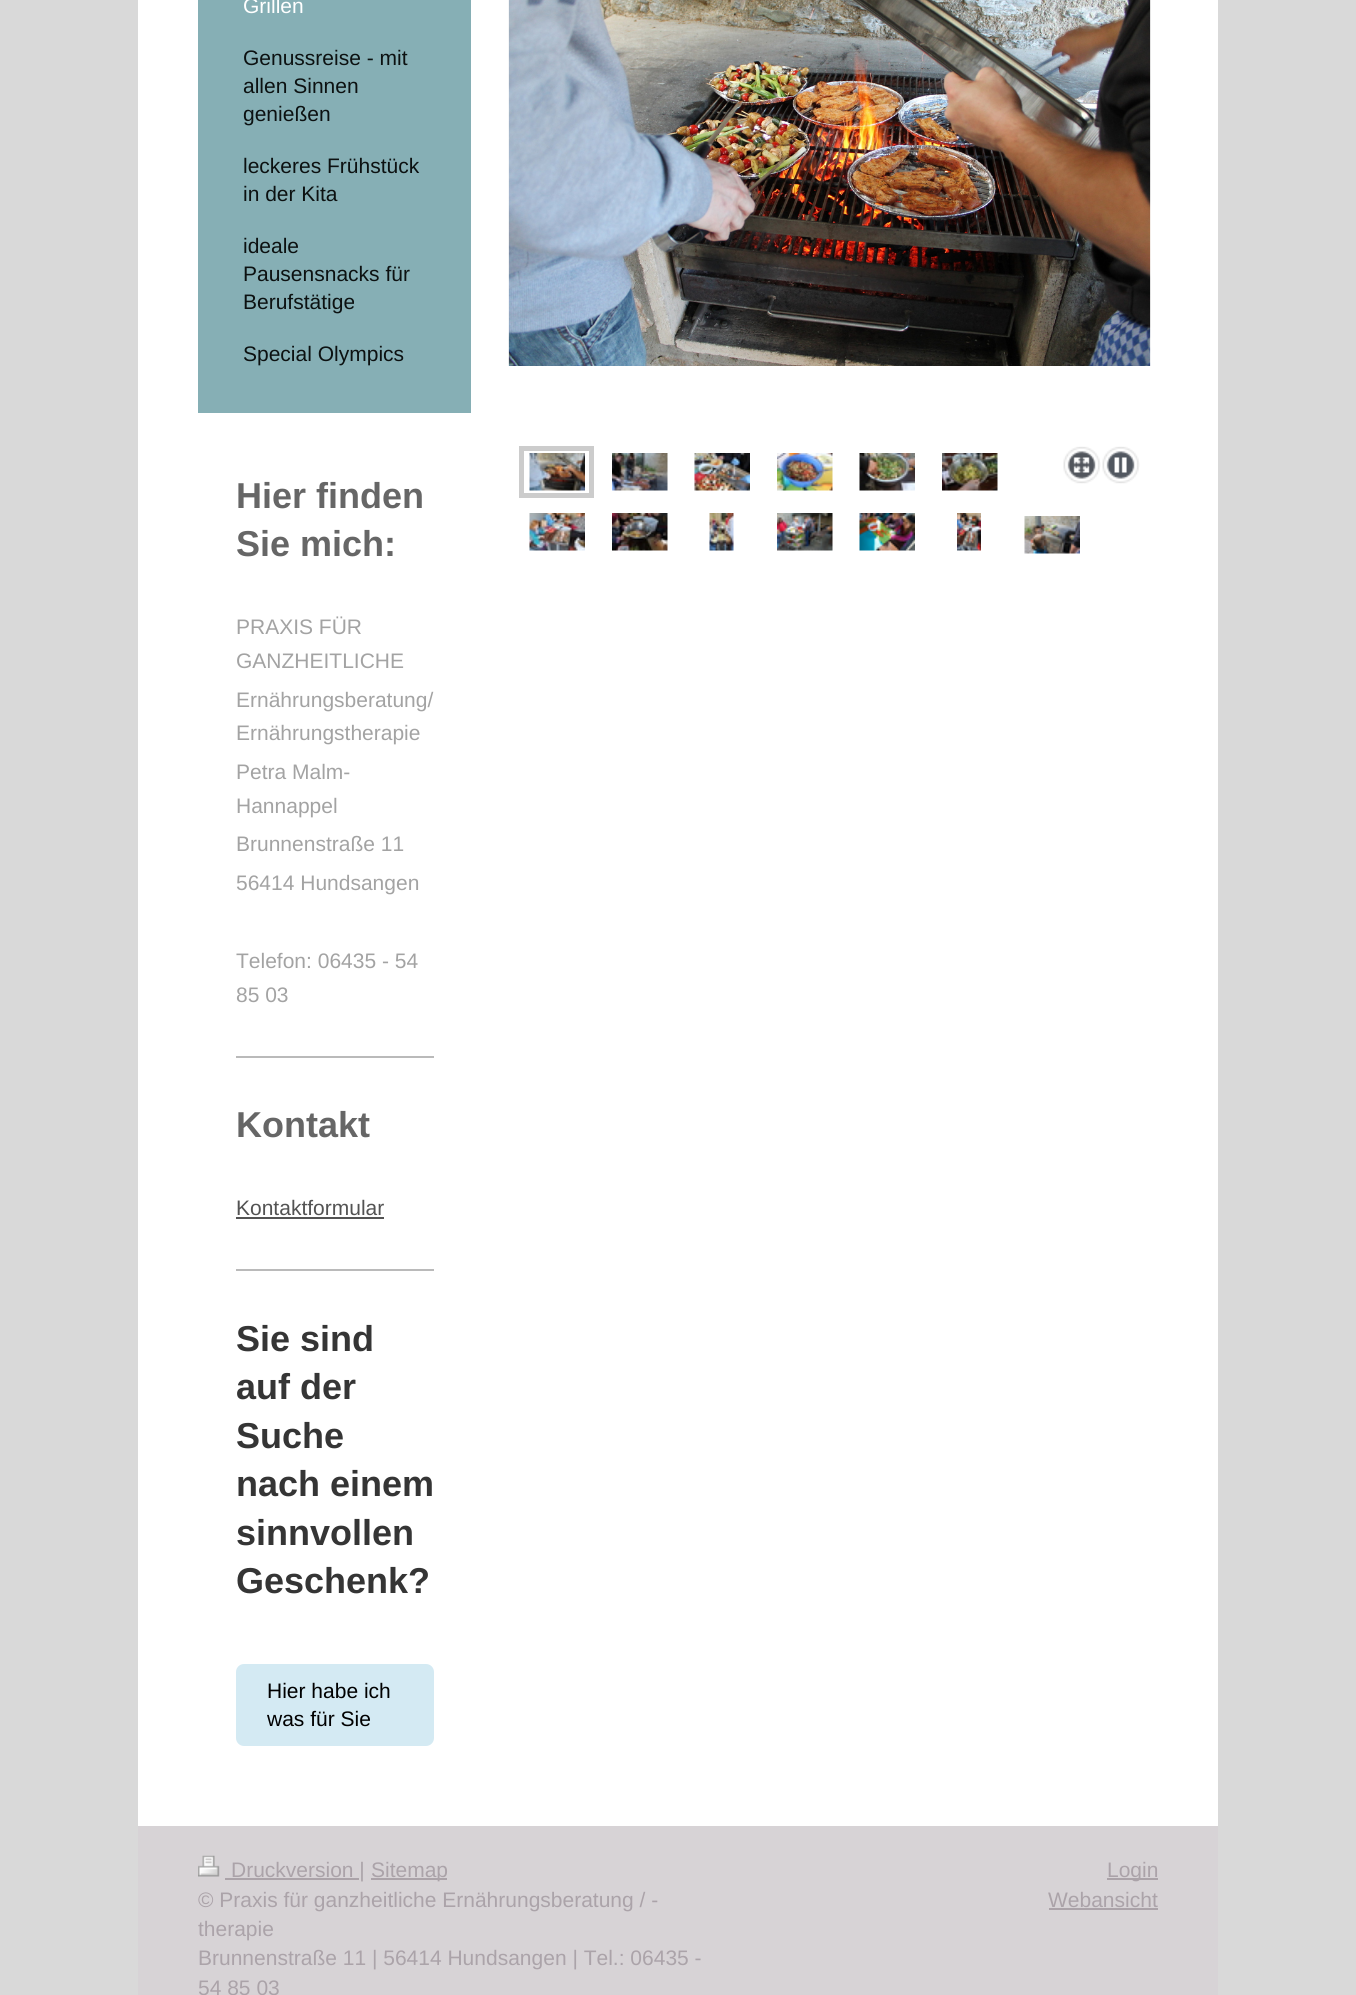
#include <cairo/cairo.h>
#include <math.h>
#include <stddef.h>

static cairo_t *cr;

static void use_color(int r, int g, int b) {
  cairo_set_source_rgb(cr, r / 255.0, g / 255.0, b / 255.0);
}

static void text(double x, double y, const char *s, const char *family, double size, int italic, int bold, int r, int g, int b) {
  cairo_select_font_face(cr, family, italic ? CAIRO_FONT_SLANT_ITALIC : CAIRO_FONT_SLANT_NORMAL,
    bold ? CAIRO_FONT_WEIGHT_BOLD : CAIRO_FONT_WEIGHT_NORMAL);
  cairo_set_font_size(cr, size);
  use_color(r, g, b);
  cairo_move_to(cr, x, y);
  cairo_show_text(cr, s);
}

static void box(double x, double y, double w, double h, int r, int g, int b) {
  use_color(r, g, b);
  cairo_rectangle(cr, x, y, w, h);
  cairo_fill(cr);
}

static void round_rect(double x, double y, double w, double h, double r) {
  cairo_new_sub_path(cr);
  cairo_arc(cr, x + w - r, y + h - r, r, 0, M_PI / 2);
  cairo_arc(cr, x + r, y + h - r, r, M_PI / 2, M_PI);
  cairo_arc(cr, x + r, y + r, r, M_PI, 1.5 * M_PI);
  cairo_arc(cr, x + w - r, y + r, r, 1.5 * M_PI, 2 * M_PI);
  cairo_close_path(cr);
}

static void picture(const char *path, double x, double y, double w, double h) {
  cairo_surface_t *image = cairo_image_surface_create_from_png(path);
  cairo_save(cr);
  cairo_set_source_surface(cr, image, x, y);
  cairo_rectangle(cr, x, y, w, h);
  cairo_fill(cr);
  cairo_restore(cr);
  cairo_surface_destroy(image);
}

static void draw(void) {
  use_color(217, 217, 217);
  cairo_paint(cr);
  box(138, 0, 1080, 1826, 255, 255, 255);
  box(198, 0, 273, 413, 134, 175, 181);
  box(236, 1056, 198, 2, 186, 186, 186);
  box(236, 1217, 148, 2, 83, 83, 83);
  box(236, 1269, 198, 2, 186, 186, 186);
  use_color(212, 234, 243);
  round_rect(237, 1665, 196, 80, 7);
  cairo_fill_preserve(cr);
  cairo_stroke(cr);
  picture("img_01.png", 508, 0, 643, 366);
  cairo_rectangle(cr, 521.5, 448.5, 70, 47);
  use_color(204, 204, 204);
  cairo_set_line_width(cr, 5);
  cairo_stroke(cr);
  picture("img_02.png", 529, 453, 56, 38);
  picture("img_03.png", 612, 453, 56, 38);
  picture("img_04.png", 694, 453, 56, 38);
  picture("img_05.png", 777, 453, 56, 38);
  picture("img_06.png", 859, 453, 56, 38);
  picture("img_07.png", 942, 453, 56, 38);
  picture("img_08.png", 1063, 446, 38, 38);
  picture("img_09.png", 1102, 446, 38, 38);
  picture("img_10.png", 529, 513, 56, 38);
  picture("img_11.png", 612, 513, 56, 38);
  picture("img_12.png", 709, 513, 25, 38);
  picture("img_13.png", 777, 513, 56, 38);
  picture("img_14.png", 859, 513, 56, 38);
  picture("img_15.png", 957, 513, 24, 38);
  picture("img_16.png", 1024, 516, 56, 38);
  box(138, 1826, 1080, 169, 215, 211, 214);
  picture("img_17.png", 198, 1855, 22, 22);
  box(225, 1878, 134, 2, 171, 163, 169);
  box(371, 1878, 76, 2, 171, 163, 169);
  box(1107, 1878, 51, 2, 171, 163, 169);
  box(1049, 1908, 109, 2, 171, 163, 169);
  text(243, 13, "Grillen", "Liberation Sans", 21, 0, 0, 255, 255, 255);
  text(243, 65, "Genussreise - mit", "Liberation Sans", 21, 0, 0, 12, 17, 17);
  text(243, 93, "allen Sinnen", "Liberation Sans", 21, 0, 0, 12, 17, 17);
  text(243, 121, "genießen", "Liberation Sans", 21, 0, 0, 12, 17, 17);
  text(243, 173, "leckeres Frühstück", "Liberation Sans", 21, 0, 0, 12, 17, 17);
  text(243, 201, "in der Kita", "Liberation Sans", 21, 0, 0, 12, 17, 17);
  text(243, 253, "ideale", "Liberation Sans", 21, 0, 0, 12, 17, 17);
  text(243, 281, "Pausensnacks für", "Liberation Sans", 21, 0, 0, 12, 17, 17);
  text(243, 309, "Berufstätige", "Liberation Sans", 21, 0, 0, 12, 17, 17);
  text(243, 361, "Special Olympics", "Liberation Sans", 21, 0, 0, 12, 17, 17);
  text(236, 508, "Hier finden", "Liberation Sans", 36, 0, 1, 102, 102, 102);
  text(236, 556, "Sie mich:", "Liberation Sans", 36, 0, 1, 102, 102, 102);
  text(236, 634, "PRAXIS FÜR", "Liberation Sans", 21, 0, 0, 163, 163, 163);
  text(236, 668, "GANZHEITLICHE", "Liberation Sans", 21, 0, 0, 163, 163, 163);
  text(236, 707, "Ernährungsberatung/", "Liberation Sans", 21, 0, 0, 163, 163, 163);
  text(236, 740, "Ernährungstherapie", "Liberation Sans", 21, 0, 0, 163, 163, 163);
  text(236, 779, "Petra Malm-", "Liberation Sans", 21, 0, 0, 163, 163, 163);
  text(236, 813, "Hannappel", "Liberation Sans", 21, 0, 0, 163, 163, 163);
  text(236, 851, "Brunnenstraße 11", "Liberation Sans", 21, 0, 0, 163, 163, 163);
  text(236, 890, "56414 Hundsangen", "Liberation Sans", 21, 0, 0, 163, 163, 163);
  text(236, 968, "Telefon: 06435 - 54", "Liberation Sans", 21, 0, 0, 163, 163, 163);
  text(236, 1002, "85 03", "Liberation Sans", 21, 0, 0, 163, 163, 163);
  text(236, 1137, "Kontakt", "Liberation Sans", 36, 0, 1, 102, 102, 102);
  text(236, 1215, "Kontaktformular", "Liberation Sans", 21, 0, 0, 83, 83, 83);
  text(236, 1351, "Sie sind", "Liberation Sans", 36, 0, 1, 53, 53, 53);
  text(236, 1399, "auf der", "Liberation Sans", 36, 0, 1, 53, 53, 53);
  text(236, 1448, "Suche", "Liberation Sans", 36, 0, 1, 53, 53, 53);
  text(236, 1496, "nach einem", "Liberation Sans", 36, 0, 1, 53, 53, 53);
  text(236, 1545, "sinnvollen", "Liberation Sans", 36, 0, 1, 53, 53, 53);
  text(236, 1593, "Geschenk?", "Liberation Sans", 36, 0, 1, 53, 53, 53);
  text(267, 1698, "Hier habe ich", "Liberation Sans", 21, 0, 0, 0, 0, 0);
  text(267, 1726, "was für Sie", "Liberation Sans", 21, 0, 0, 0, 0, 0);
  text(231, 1877, "Druckversion |", "Liberation Sans", 21, 0, 0, 171, 163, 169);
  text(371, 1877, "Sitemap", "Liberation Sans", 21, 0, 0, 171, 163, 169);
  text(198, 1907, "© Praxis für ganzheitliche Ernährungsberatung / -", "Liberation Sans", 21, 0, 0, 171, 163, 169);
  text(198, 1936, "therapie", "Liberation Sans", 21, 0, 0, 171, 163, 169);
  text(198, 1965, "Brunnenstraße 11 | 56414 Hundsangen | Tel.: 06435 -", "Liberation Sans", 21, 0, 0, 171, 163, 169);
  text(198, 1995, "54 85 03", "Liberation Sans", 21, 0, 0, 171, 163, 169);
  text(1107, 1877, "Login", "Liberation Sans", 21, 0, 0, 171, 163, 169);
  text(1048, 1907, "Webansicht", "Liberation Sans", 21, 0, 0, 171, 163, 169);
}

int main(void) {
  cairo_surface_t *surface = cairo_image_surface_create(CAIRO_FORMAT_RGB24, 1356, 1995);
  cr = cairo_create(surface);
  cairo_font_options_t *options = cairo_font_options_create();
  cairo_font_options_set_hint_metrics(options, CAIRO_HINT_METRICS_OFF);
  cairo_font_options_set_hint_style(options, CAIRO_HINT_STYLE_NONE);
  cairo_set_font_options(cr, options);
  cairo_set_miter_limit(cr, 4);
  draw();
  cairo_surface_write_to_png(surface, "out.png");
  cairo_font_options_destroy(options);
  cairo_destroy(cr);
  cairo_surface_destroy(surface);
  return 0;
}
